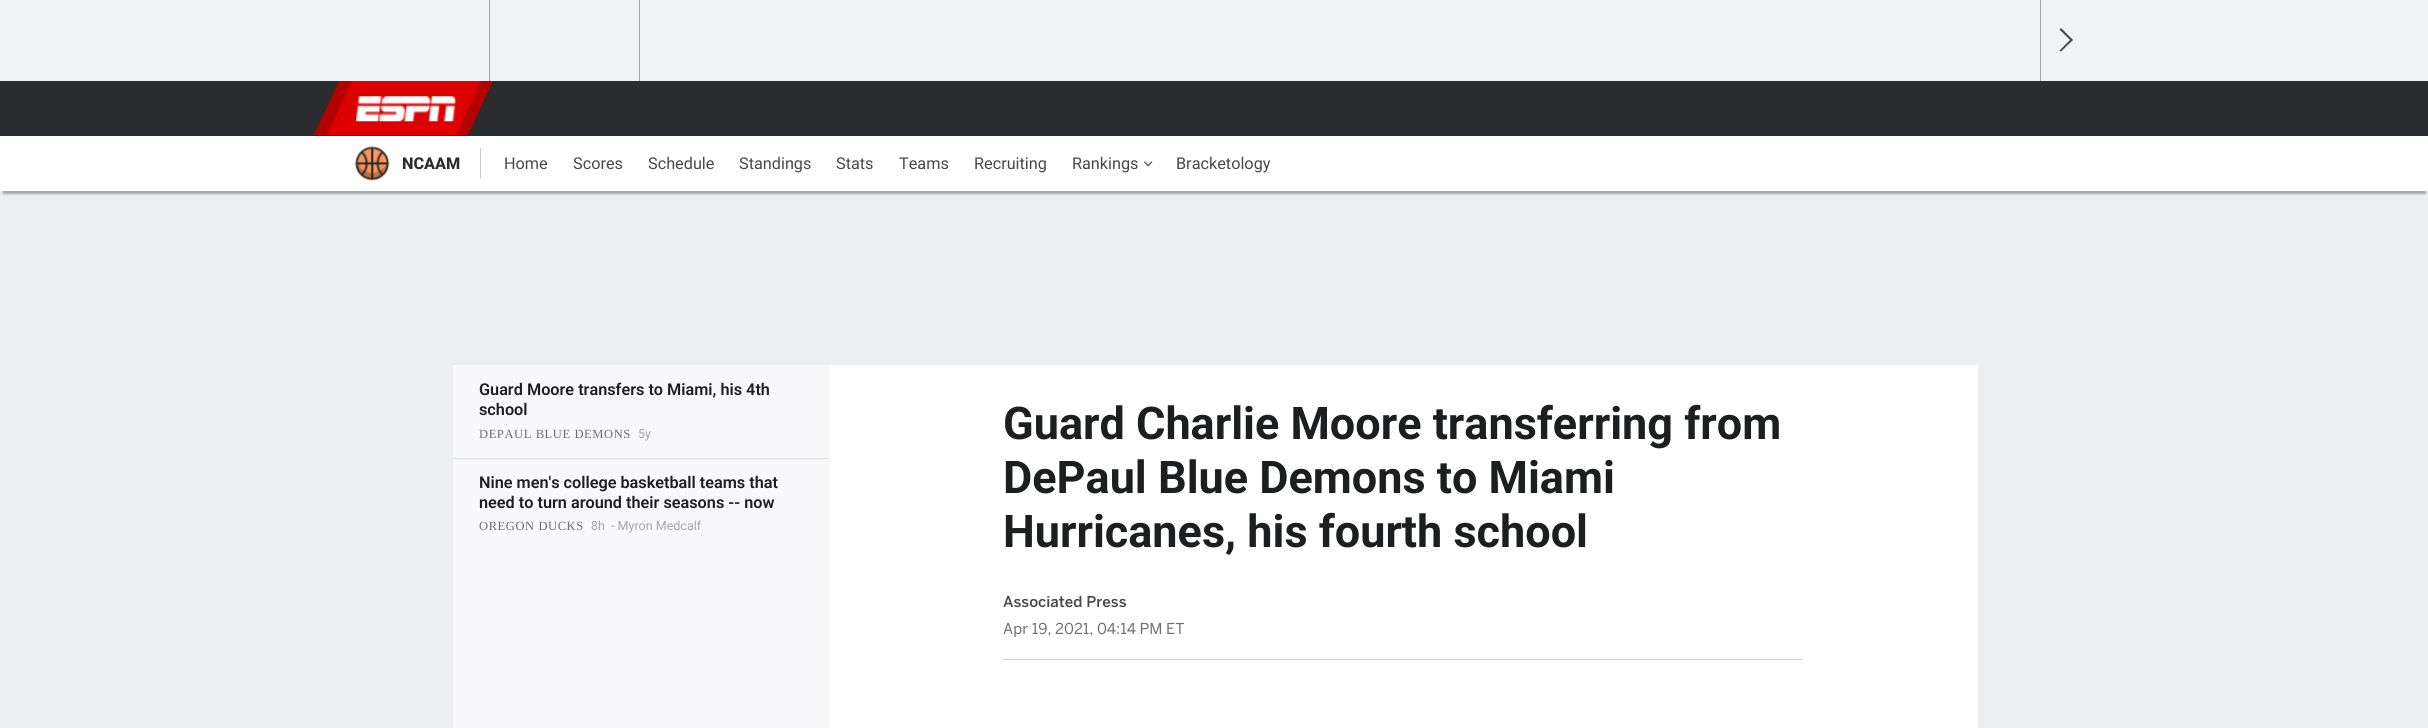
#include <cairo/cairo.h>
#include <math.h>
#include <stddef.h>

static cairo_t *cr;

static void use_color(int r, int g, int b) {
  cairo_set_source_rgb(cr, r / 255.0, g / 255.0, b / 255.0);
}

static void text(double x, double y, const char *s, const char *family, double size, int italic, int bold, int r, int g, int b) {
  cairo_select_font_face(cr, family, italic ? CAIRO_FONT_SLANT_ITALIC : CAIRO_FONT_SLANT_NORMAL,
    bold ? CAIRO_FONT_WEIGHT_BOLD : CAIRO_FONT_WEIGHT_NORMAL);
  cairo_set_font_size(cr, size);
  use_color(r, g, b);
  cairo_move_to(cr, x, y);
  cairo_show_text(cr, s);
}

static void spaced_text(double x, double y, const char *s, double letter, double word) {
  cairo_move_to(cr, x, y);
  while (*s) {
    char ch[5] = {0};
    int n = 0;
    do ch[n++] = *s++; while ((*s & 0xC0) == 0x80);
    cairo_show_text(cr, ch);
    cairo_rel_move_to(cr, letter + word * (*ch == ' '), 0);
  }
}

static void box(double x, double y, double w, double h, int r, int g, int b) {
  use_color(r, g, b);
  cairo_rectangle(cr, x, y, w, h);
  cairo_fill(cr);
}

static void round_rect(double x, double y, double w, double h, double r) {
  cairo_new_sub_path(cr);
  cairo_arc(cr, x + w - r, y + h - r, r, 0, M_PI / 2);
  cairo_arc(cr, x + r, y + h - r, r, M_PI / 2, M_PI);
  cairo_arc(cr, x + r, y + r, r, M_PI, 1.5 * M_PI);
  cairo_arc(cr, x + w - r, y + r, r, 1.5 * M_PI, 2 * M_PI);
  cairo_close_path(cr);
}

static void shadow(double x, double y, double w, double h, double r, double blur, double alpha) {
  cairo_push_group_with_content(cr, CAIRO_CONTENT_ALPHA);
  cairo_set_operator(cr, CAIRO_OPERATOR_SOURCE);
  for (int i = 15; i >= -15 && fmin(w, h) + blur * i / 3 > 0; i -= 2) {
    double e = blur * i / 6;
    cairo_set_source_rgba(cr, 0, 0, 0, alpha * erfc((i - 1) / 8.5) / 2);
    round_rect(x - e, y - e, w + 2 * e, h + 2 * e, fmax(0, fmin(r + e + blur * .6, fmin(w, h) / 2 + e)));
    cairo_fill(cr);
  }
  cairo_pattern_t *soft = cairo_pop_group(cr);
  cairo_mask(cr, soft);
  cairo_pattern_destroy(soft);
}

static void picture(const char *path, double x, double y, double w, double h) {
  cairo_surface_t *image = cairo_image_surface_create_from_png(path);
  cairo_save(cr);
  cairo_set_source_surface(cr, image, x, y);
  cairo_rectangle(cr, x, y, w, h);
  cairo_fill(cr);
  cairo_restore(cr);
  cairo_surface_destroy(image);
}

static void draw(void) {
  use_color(237, 238, 240);
  cairo_paint(cr);
  box(0, 0, 2428, 81, 241, 242, 243);
  box(489, 0, 1, 81, 165, 166, 167);
  box(639, 0, 1, 81, 165, 166, 167);
  box(2040, 0, 1, 81, 165, 166, 167);
  use_color(72, 73, 74);
  cairo_new_path(cr);
  cairo_move_to(cr, 2061, 28);
  cairo_line_to(cr, 2059.5, 29.5);
  cairo_line_to(cr, 2070, 40);
  cairo_line_to(cr, 2059.5, 50.5);
  cairo_line_to(cr, 2061, 51.5);
  cairo_line_to(cr, 2073, 40);
  cairo_close_path(cr);
  cairo_fill(cr);
  box(0, 81, 2428, 55, 43, 44, 45);
  use_color(180, 0, 0);
  cairo_new_path(cr);
  cairo_move_to(cr, 339, 81);
  cairo_line_to(cr, 493, 81);
  cairo_line_to(cr, 468, 135);
  cairo_line_to(cr, 314, 135);
  cairo_close_path(cr);
  cairo_fill(cr);
  use_color(221, 0, 0);
  cairo_new_path(cr);
  cairo_move_to(cr, 352, 81);
  cairo_line_to(cr, 481, 81);
  cairo_line_to(cr, 456, 135);
  cairo_line_to(cr, 327, 135);
  cairo_close_path(cr);
  cairo_fill(cr);
  picture("img_01.png", 356, 96, 101, 26);
  use_color(0, 0, 0);
  shadow(3, 144, 2423, 50, 0, 1, 0.3);
  use_color(255, 255, 255);
  round_rect(0, 136, 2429, 55, 1);
  cairo_fill(cr);
  picture("img_02.png", 355, 146, 35, 35);
  box(480, 148, 1, 31, 203, 204, 206);
  picture("img_03.png", 1144, 161, 9, 6);
  box(453, 365, 375, 363, 249, 249, 251);
  box(453, 458, 375, 1, 220, 221, 223);
  box(828, 365, 1, 363, 241, 242, 243);
  box(829, 365, 1149, 363, 255, 255, 255);
  box(1003, 659, 800, 1, 206, 207, 207);
  text(402, 169, "NCAAM", "Roboto ExtraBold", 16.25, 0, 0, 43, 44, 45);
  text(504, 169, "Home", "Roboto", 16.25, 0, 0, 72, 73, 74);
  text(573, 169, "Scores", "Roboto", 16.25, 0, 0, 72, 73, 74);
  text(648, 169, "Schedule", "Roboto", 16.25, 0, 0, 72, 73, 74);
  text(739, 169, "Standings", "Roboto", 16.25, 0, 0, 72, 73, 74);
  text(836, 169, "Stats", "Roboto", 16.25, 0, 0, 72, 73, 74);
  text(899, 169, "Teams", "Roboto", 16.25, 0, 0, 72, 73, 74);
  text(974, 169, "Recruiting", "Roboto", 16.25, 0, 0, 72, 73, 74);
  text(1072, 169, "Rankings", "Roboto", 16.25, 0, 0, 72, 73, 74);
  text(1176, 169, "Bracketology", "Roboto", 16.25, 0, 0, 72, 73, 74);
  text(479, 395, "Guard Moore transfers to Miami, his 4th", "Roboto SemiBold", 16.25, 0, 0, 29, 30, 31);
  text(479, 415, "school", "Roboto SemiBold", 16.25, 0, 0, 29, 30, 31);
  cairo_select_font_face(cr, "Liberation Serif", CAIRO_FONT_SLANT_NORMAL, CAIRO_FONT_WEIGHT_NORMAL);
  cairo_set_font_size(cr, 12.5);
  use_color(108, 109, 111);
  spaced_text(479, 438, "DEPAUL BLUE DEMONS", 0.6, 0);
  text(638, 438, "5y", "Roboto", 12.5, 0, 0, 165, 166, 167);
  text(479, 488, "Nine men's college basketball teams that", "Roboto SemiBold", 16.25, 0, 0, 29, 30, 31);
  text(479, 508, "need to turn around their seasons -- now", "Roboto SemiBold", 16.25, 0, 0, 29, 30, 31);
  cairo_select_font_face(cr, "Liberation Serif", CAIRO_FONT_SLANT_NORMAL, CAIRO_FONT_WEIGHT_NORMAL);
  cairo_set_font_size(cr, 12.5);
  use_color(108, 109, 111);
  spaced_text(479, 530, "OREGON DUCKS", 0.6, 0);
  text(591, 530, "8h", "Roboto", 12.5, 0, 0, 165, 166, 167);
  text(611, 530, "- Myron Medcalf", "Roboto", 12.5, 0, 0, 165, 166, 167);
  text(1003, 439, "Guard Charlie Moore transferring from", "Roboto", 45, 0, 1, 29, 30, 31);
  text(1003, 493, "DePaul Blue Demons to Miami", "Roboto", 45, 0, 1, 29, 30, 31);
  text(1003, 547, "Hurricanes, his fourth school", "Roboto", 45, 0, 1, 29, 30, 31);
  text(1003, 607, "Associated Press", "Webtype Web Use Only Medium", 15, 0, 0, 72, 73, 74);
  text(1003, 634, "Apr 19, 2021, 04:14 PM ET", "Webtype Web Use Only", 15, 0, 0, 108, 109, 111);
}

int main(void) {
  cairo_surface_t *surface = cairo_image_surface_create(CAIRO_FORMAT_RGB24, 2428, 728);
  cr = cairo_create(surface);
  cairo_font_options_t *options = cairo_font_options_create();
  cairo_font_options_set_hint_metrics(options, CAIRO_HINT_METRICS_OFF);
  cairo_font_options_set_hint_style(options, CAIRO_HINT_STYLE_NONE);
  cairo_set_font_options(cr, options);
  cairo_set_miter_limit(cr, 4);
  draw();
  cairo_surface_write_to_png(surface, "out.png");
  cairo_font_options_destroy(options);
  cairo_destroy(cr);
  cairo_surface_destroy(surface);
  return 0;
}
